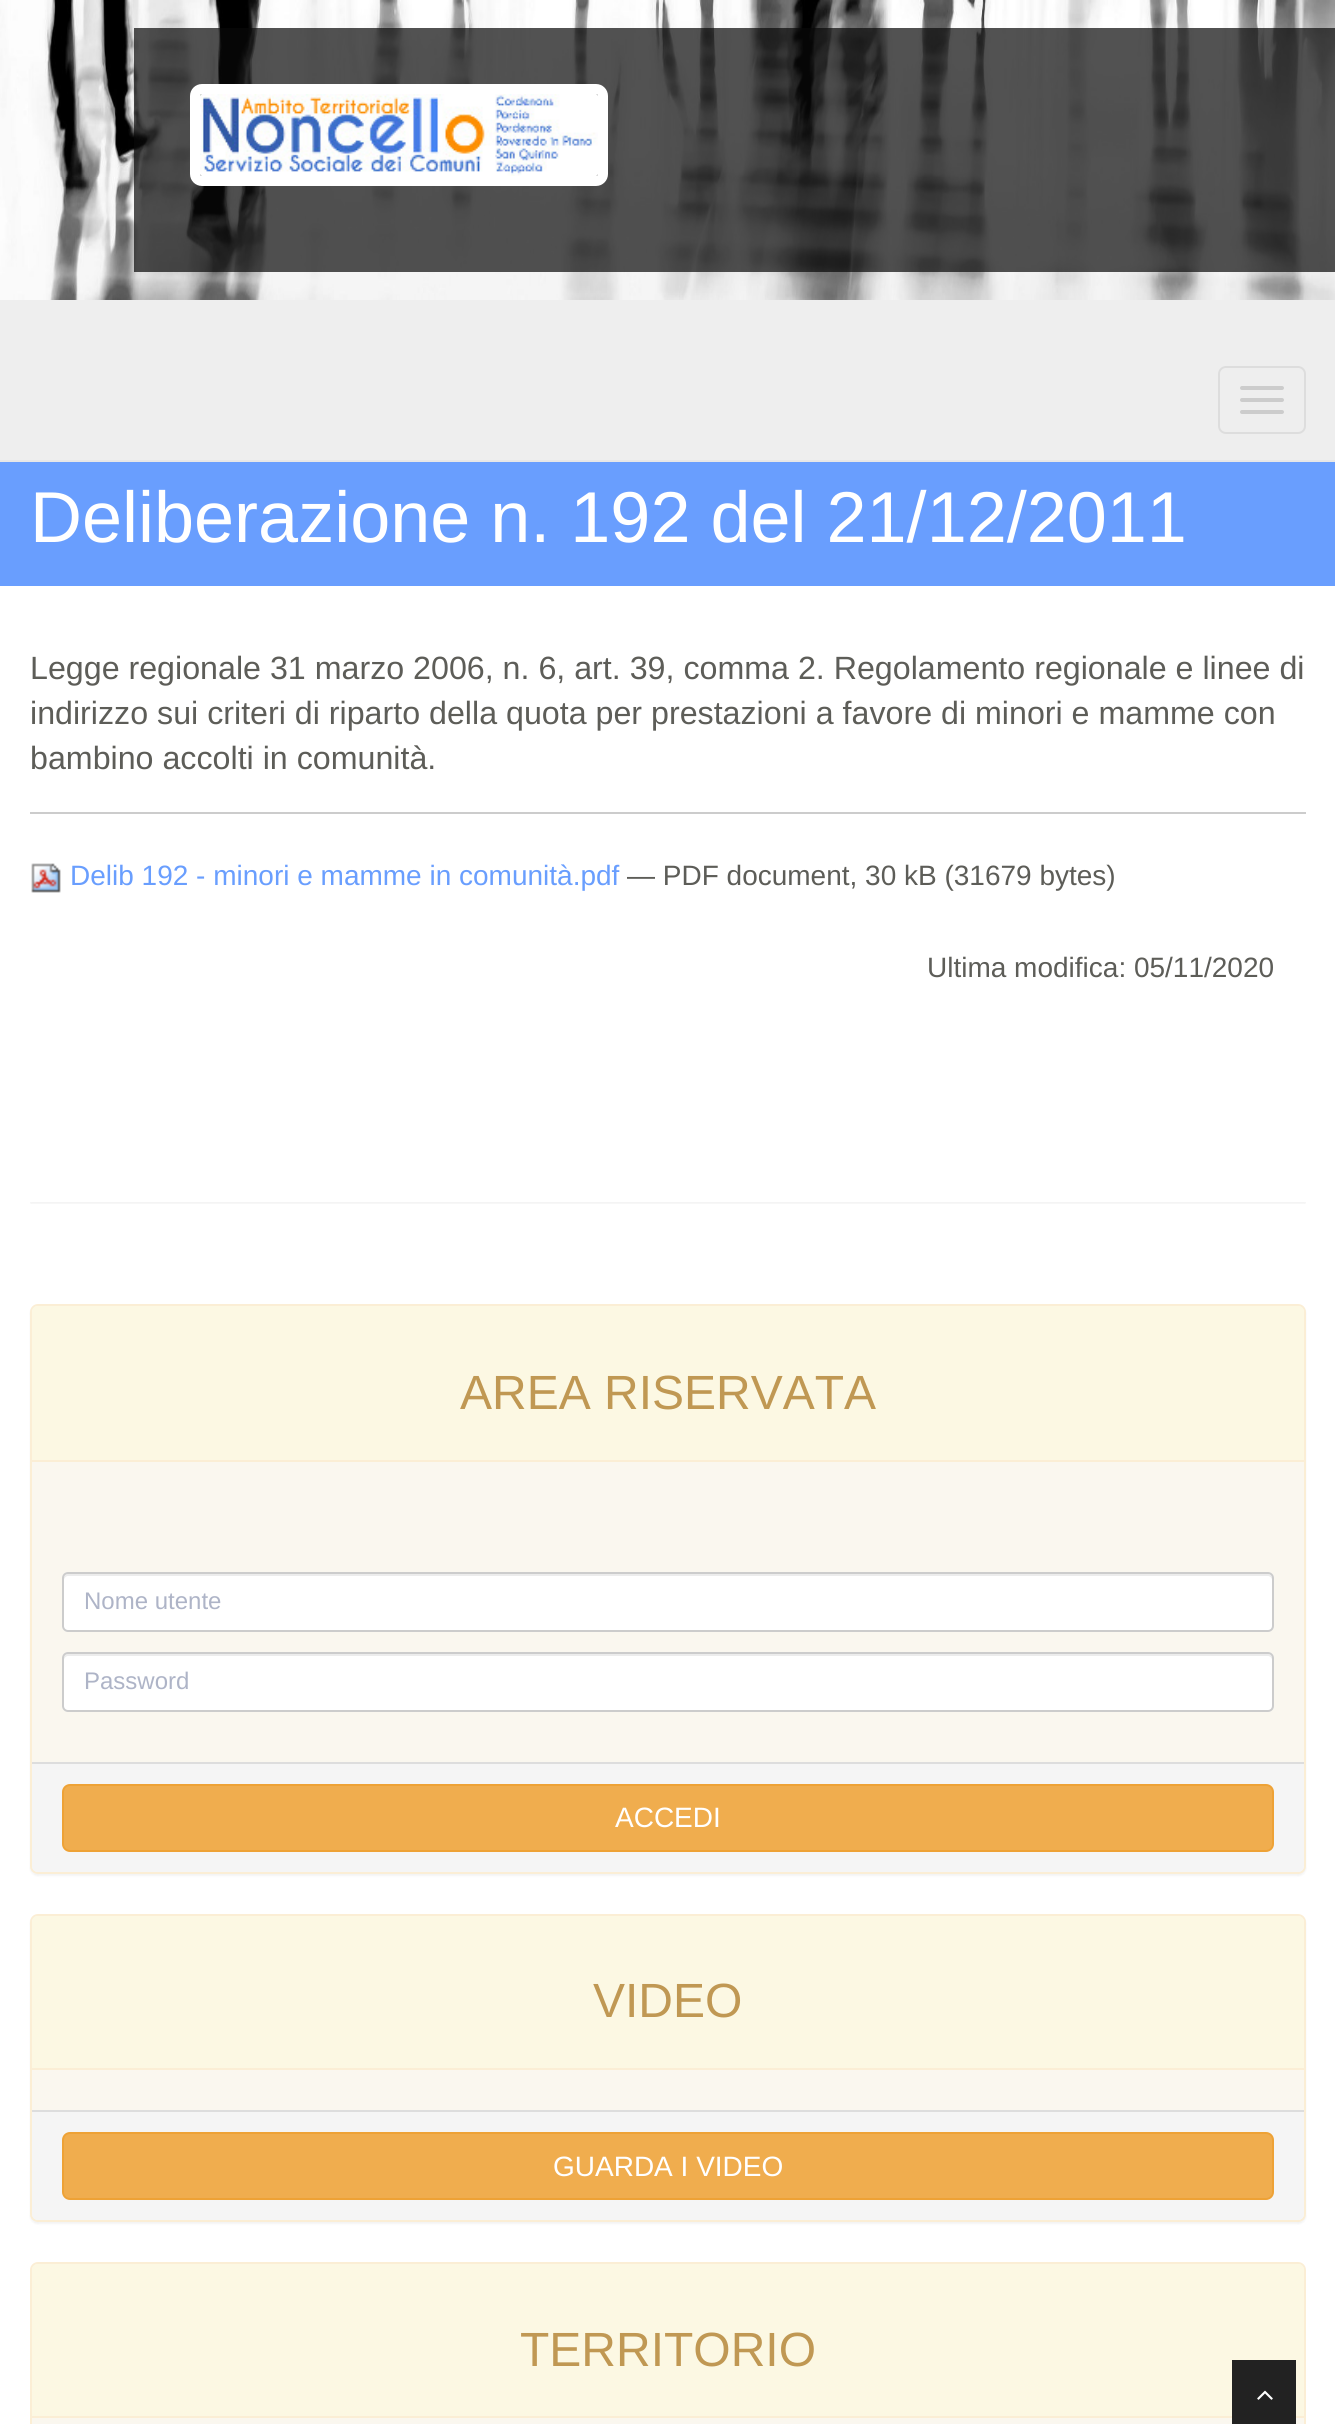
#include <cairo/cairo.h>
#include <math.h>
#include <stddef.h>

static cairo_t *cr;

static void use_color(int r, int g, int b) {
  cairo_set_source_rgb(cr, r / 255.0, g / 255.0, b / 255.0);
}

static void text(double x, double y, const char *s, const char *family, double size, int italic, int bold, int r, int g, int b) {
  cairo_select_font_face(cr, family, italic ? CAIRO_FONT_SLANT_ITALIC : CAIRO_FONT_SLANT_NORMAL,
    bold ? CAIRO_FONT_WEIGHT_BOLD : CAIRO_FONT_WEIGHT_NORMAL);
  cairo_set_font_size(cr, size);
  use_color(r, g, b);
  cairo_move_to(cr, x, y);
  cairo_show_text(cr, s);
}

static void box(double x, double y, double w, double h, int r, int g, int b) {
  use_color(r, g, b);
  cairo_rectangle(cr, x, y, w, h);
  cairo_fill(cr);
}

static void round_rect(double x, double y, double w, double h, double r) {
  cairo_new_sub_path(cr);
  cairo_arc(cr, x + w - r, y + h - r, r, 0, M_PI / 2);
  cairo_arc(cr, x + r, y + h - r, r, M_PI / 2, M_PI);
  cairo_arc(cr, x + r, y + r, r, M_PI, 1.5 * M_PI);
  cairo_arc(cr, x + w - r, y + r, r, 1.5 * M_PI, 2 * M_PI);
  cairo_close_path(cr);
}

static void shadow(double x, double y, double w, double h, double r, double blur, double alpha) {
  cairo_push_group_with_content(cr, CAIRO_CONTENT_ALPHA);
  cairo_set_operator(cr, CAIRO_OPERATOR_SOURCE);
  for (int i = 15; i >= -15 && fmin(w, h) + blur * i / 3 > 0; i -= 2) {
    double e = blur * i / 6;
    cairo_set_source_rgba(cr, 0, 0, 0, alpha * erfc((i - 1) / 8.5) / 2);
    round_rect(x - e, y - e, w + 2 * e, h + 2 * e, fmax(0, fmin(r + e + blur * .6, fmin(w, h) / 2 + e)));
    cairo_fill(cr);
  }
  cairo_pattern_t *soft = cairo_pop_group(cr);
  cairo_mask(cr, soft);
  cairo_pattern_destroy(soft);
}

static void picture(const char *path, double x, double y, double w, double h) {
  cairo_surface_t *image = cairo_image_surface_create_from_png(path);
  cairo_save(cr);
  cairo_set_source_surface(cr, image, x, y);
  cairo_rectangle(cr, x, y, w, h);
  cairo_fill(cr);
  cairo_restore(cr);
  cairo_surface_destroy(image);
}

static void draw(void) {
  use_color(255, 255, 255);
  cairo_paint(cr);
  picture("img_01.png", 0, 0, 1335, 300);
  cairo_set_source_rgba(cr, 0.035, 0.035, 0.035, 0.7);
  cairo_rectangle(cr, 134, 28, 1201, 244);
  cairo_fill(cr);
  round_rect(195, 89, 408, 92, 7);
  use_color(255, 255, 255);
  cairo_set_line_width(cr, 10);
  cairo_stroke(cr);
  picture("img_02.png", 200, 94, 398, 82);
  box(0, 300, 1335, 160, 238, 238, 238);
  box(0, 460, 1335, 2, 231, 231, 231);
  round_rect(1219, 367, 86, 66, 7);
  use_color(221, 221, 221);
  cairo_set_line_width(cr, 2);
  cairo_stroke(cr);
  use_color(204, 204, 204);
  round_rect(1240, 386, 44, 4, 2);
  cairo_fill(cr);
  round_rect(1240, 398, 44, 4, 2);
  cairo_fill(cr);
  round_rect(1240, 410, 44, 4, 2);
  cairo_fill(cr);
  box(0, 462, 1335, 124, 105, 158, 254);
  box(30, 812, 1276, 2, 204, 204, 204);
  picture("img_03.png", 31, 863, 30, 30);
  cairo_save(cr);
  cairo_rectangle(cr, 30, 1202, 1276, 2);
  cairo_clip(cr);
  use_color(0, 0, 0);
  shadow(30, 1200, 1276, 4, 2, 1, 0.05);
  cairo_restore(cr);
  use_color(0, 0, 0);
  shadow(30, 1306, 1276, 570, 8, 1, 0.05);
  use_color(250, 247, 239);
  round_rect(31, 1305, 1274, 568, 7);
  cairo_fill_preserve(cr);
  use_color(251, 238, 213);
  cairo_stroke(cr);
  use_color(252, 248, 227);
  cairo_new_path(cr);
  cairo_move_to(cr, 38, 1306);
  cairo_line_to(cr, 1298, 1306);
  cairo_curve_to(cr, 1301.5, 1306, 1304, 1308.5, 1304, 1312);
  cairo_line_to(cr, 1304, 1462);
  cairo_line_to(cr, 32, 1462);
  cairo_line_to(cr, 32, 1312);
  cairo_curve_to(cr, 32, 1308.5, 34.5, 1306, 38, 1306);
  cairo_close_path(cr);
  cairo_fill(cr);
  box(32, 1460, 1272, 2, 251, 238, 213);
  use_color(255, 255, 255);
  round_rect(62, 1572, 1212, 60, 6);
  cairo_fill(cr);
  use_color(236, 236, 236);
  cairo_new_path(cr);
  cairo_move_to(cr, 68, 1576);
  cairo_line_to(cr, 1268, 1576);
  cairo_curve_to(cr, 1270, 1576, 1272, 1578, 1272, 1580);
  cairo_line_to(cr, 1272, 1578);
  cairo_curve_to(cr, 1272, 1576, 1270, 1574, 1268, 1574);
  cairo_line_to(cr, 68, 1574);
  cairo_curve_to(cr, 66, 1574, 64, 1576, 64, 1578);
  cairo_line_to(cr, 64, 1580);
  cairo_curve_to(cr, 64, 1578, 66, 1576, 68, 1576);
  cairo_close_path(cr);
  cairo_fill(cr);
  round_rect(63, 1573, 1210, 58, 5);
  use_color(204, 204, 204);
  cairo_stroke(cr);
  use_color(255, 255, 255);
  round_rect(62, 1652, 1212, 60, 6);
  cairo_fill(cr);
  use_color(236, 236, 236);
  cairo_new_path(cr);
  cairo_move_to(cr, 68, 1656);
  cairo_line_to(cr, 1268, 1656);
  cairo_curve_to(cr, 1270, 1656, 1272, 1658, 1272, 1660);
  cairo_line_to(cr, 1272, 1658);
  cairo_curve_to(cr, 1272, 1656, 1270, 1654, 1268, 1654);
  cairo_line_to(cr, 68, 1654);
  cairo_curve_to(cr, 66, 1654, 64, 1656, 64, 1658);
  cairo_line_to(cr, 64, 1660);
  cairo_curve_to(cr, 64, 1658, 66, 1656, 68, 1656);
  cairo_close_path(cr);
  cairo_fill(cr);
  round_rect(63, 1653, 1210, 58, 5);
  use_color(204, 204, 204);
  cairo_stroke(cr);
  use_color(245, 245, 245);
  cairo_new_path(cr);
  cairo_move_to(cr, 32, 1762);
  cairo_line_to(cr, 1304, 1762);
  cairo_line_to(cr, 1304, 1866);
  cairo_curve_to(cr, 1304, 1869.5, 1301.5, 1872, 1298, 1872);
  cairo_line_to(cr, 38, 1872);
  cairo_curve_to(cr, 34.5, 1872, 32, 1869.5, 32, 1866);
  cairo_close_path(cr);
  cairo_fill(cr);
  box(32, 1762, 1272, 2, 221, 221, 221);
  use_color(240, 173, 78);
  round_rect(63, 1785, 1210, 66, 7);
  cairo_fill_preserve(cr);
  use_color(238, 162, 54);
  cairo_stroke(cr);
  use_color(0, 0, 0);
  shadow(30, 1916, 1276, 308, 8, 1, 0.05);
  use_color(250, 247, 239);
  round_rect(31, 1915, 1274, 306, 7);
  cairo_fill_preserve(cr);
  use_color(251, 238, 213);
  cairo_stroke(cr);
  use_color(252, 248, 227);
  cairo_new_path(cr);
  cairo_move_to(cr, 38, 1916);
  cairo_line_to(cr, 1298, 1916);
  cairo_curve_to(cr, 1301.5, 1916, 1304, 1918.5, 1304, 1922);
  cairo_line_to(cr, 1304, 2070);
  cairo_line_to(cr, 32, 2070);
  cairo_line_to(cr, 32, 1922);
  cairo_curve_to(cr, 32, 1918.5, 34.5, 1916, 38, 1916);
  cairo_close_path(cr);
  cairo_fill(cr);
  box(32, 2068, 1272, 2, 251, 238, 213);
  use_color(245, 245, 245);
  cairo_new_path(cr);
  cairo_move_to(cr, 32, 2110);
  cairo_line_to(cr, 1304, 2110);
  cairo_line_to(cr, 1304, 2214);
  cairo_curve_to(cr, 1304, 2217.5, 1301.5, 2220, 1298, 2220);
  cairo_line_to(cr, 38, 2220);
  cairo_curve_to(cr, 34.5, 2220, 32, 2217.5, 32, 2214);
  cairo_close_path(cr);
  cairo_fill(cr);
  box(32, 2110, 1272, 2, 221, 221, 221);
  use_color(240, 173, 78);
  round_rect(63, 2133, 1210, 66, 7);
  cairo_fill_preserve(cr);
  use_color(238, 162, 54);
  cairo_stroke(cr);
  use_color(250, 247, 239);
  round_rect(31, 2263, 1274, 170, 7);
  cairo_fill_preserve(cr);
  use_color(251, 238, 213);
  cairo_stroke(cr);
  use_color(252, 248, 227);
  cairo_new_path(cr);
  cairo_move_to(cr, 38, 2264);
  cairo_line_to(cr, 1298, 2264);
  cairo_curve_to(cr, 1301.5, 2264, 1304, 2266.5, 1304, 2270);
  cairo_line_to(cr, 1304, 2418);
  cairo_line_to(cr, 32, 2418);
  cairo_line_to(cr, 32, 2270);
  cairo_curve_to(cr, 32, 2266.5, 34.5, 2264, 38, 2264);
  cairo_close_path(cr);
  cairo_fill(cr);
  box(32, 2416, 1272, 2, 251, 238, 213);
  box(1232, 2360, 64, 64, 34, 34, 34);
  picture("img_04.png", 1257, 2390, 16, 10);
  text(30, 542, "Deliberazione n. 192 del 21/12/2011", "Liberation Sans", 72, 0, 0, 255, 255, 255);
  text(30, 679, "Legge regionale 31 marzo 2006, n. 6, art. 39, comma 2. Regolamento regionale e linee di", "Liberation Sans", 32.2, 0, 0, 93, 93, 88);
  text(30, 724, "indirizzo sui criteri di riparto della quota per prestazioni a favore di minori e mamme con", "Liberation Sans", 32.2, 0, 0, 93, 93, 88);
  text(30, 769, "bambino accolti in comunità.", "Liberation Sans", 32.2, 0, 0, 93, 93, 88);
  text(70, 885, "Delib 192 - minori e mamme in comunità.pdf", "Liberation Sans", 28, 0, 0, 105, 158, 254);
  text(627, 885, "— PDF document, 30 kB (31679 bytes)", "Liberation Sans", 28, 0, 0, 93, 93, 88);
  text(927, 977, "Ultima modifica: 05/11/2020", "Liberation Sans", 28, 0, 0, 93, 93, 88);
  text(460, 1409, "AREA RISERVATA", "Liberation Sans", 48, 0, 0, 192, 152, 83);
  text(84, 1609, "Nome utente", "Liberation Sans", 24, 0, 0, 174, 180, 199);
  text(84, 1689, "Password", "Liberation Sans", 24, 0, 0, 174, 180, 199);
  text(615, 1827, "ACCEDI", "Liberation Sans", 28, 0, 0, 255, 255, 255);
  text(593, 2017, "VIDEO", "Liberation Sans", 48, 0, 0, 192, 152, 83);
  text(553, 2176, "GUARDA I VIDEO", "Liberation Sans", 28, 0, 0, 255, 255, 255);
  text(520, 2366, "TERRITORIO", "Liberation Sans", 48, 0, 0, 192, 152, 83);
}

int main(void) {
  cairo_surface_t *surface = cairo_image_surface_create(CAIRO_FORMAT_RGB24, 1335, 2424);
  cr = cairo_create(surface);
  cairo_font_options_t *options = cairo_font_options_create();
  cairo_font_options_set_hint_metrics(options, CAIRO_HINT_METRICS_OFF);
  cairo_font_options_set_hint_style(options, CAIRO_HINT_STYLE_NONE);
  cairo_set_font_options(cr, options);
  cairo_set_miter_limit(cr, 4);
  draw();
  cairo_surface_write_to_png(surface, "out.png");
  cairo_font_options_destroy(options);
  cairo_destroy(cr);
  cairo_surface_destroy(surface);
  return 0;
}
